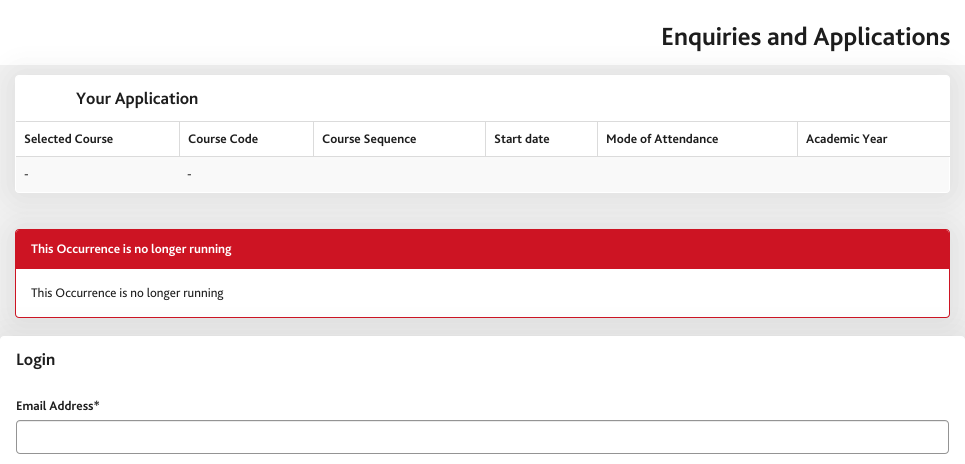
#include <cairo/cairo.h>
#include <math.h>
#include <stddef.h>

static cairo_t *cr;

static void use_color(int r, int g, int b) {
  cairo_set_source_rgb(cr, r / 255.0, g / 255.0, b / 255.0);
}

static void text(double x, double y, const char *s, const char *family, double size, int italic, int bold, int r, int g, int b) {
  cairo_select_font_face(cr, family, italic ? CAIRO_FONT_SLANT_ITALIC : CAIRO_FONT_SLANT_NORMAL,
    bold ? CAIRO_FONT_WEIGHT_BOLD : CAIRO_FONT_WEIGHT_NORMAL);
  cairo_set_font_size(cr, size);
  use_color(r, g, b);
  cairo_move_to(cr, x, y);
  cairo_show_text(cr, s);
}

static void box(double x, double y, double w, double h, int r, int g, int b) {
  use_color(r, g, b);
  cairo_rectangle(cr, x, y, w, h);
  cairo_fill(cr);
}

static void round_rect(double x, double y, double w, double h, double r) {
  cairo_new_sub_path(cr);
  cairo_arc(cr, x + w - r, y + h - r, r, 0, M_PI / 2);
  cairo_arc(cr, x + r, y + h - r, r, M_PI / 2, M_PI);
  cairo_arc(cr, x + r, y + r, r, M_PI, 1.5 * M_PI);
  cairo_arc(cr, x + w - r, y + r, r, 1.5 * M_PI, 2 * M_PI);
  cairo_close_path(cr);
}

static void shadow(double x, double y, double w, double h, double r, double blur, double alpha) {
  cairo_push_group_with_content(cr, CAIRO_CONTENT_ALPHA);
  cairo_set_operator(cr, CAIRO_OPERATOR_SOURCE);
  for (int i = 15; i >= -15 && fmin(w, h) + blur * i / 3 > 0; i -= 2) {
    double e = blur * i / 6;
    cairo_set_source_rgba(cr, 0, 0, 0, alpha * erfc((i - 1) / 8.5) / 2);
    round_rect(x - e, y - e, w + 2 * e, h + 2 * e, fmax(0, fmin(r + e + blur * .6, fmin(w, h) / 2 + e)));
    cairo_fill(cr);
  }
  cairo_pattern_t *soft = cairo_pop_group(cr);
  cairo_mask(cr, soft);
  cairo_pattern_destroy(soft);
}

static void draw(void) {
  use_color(241, 241, 241);
  cairo_paint(cr);
  box(0, 0, 965, 65, 255, 255, 255);
  use_color(0, 0, 0);
  shadow(15, 231, 935, 89, 4, 17, 0.1);
  use_color(255, 255, 255);
  round_rect(15.5, 229.5, 934, 88, 3.5);
  cairo_fill_preserve(cr);
  use_color(205, 20, 35);
  cairo_set_line_width(cr, 1);
  cairo_stroke(cr);
  cairo_new_path(cr);
  cairo_move_to(cr, 19, 230);
  cairo_line_to(cr, 946, 230);
  cairo_curve_to(cr, 947.5, 230, 949, 231.5, 949, 233);
  cairo_line_to(cr, 949, 269);
  cairo_line_to(cr, 16, 269);
  cairo_line_to(cr, 16, 233);
  cairo_curve_to(cr, 16, 231.5, 17.5, 230, 19, 230);
  cairo_close_path(cr);
  cairo_fill(cr);
  use_color(0, 0, 0);
  shadow(15, 77, 935, 118, 4, 17, 0.1);
  use_color(255, 255, 255);
  round_rect(15.5, 75.5, 934, 117, 3.5);
  cairo_fill_preserve(cr);
  cairo_stroke(cr);
  box(16, 121, 934, 1, 219, 219, 219);
  box(797, 156, 153, 1, 219, 219, 219);
  box(797, 121, 1, 36, 219, 219, 219);
  box(597, 156, 201, 1, 219, 219, 219);
  box(597, 121, 1, 36, 219, 219, 219);
  box(485, 156, 113, 1, 219, 219, 219);
  box(485, 121, 1, 36, 219, 219, 219);
  box(313, 156, 173, 1, 219, 219, 219);
  box(313, 121, 1, 36, 219, 219, 219);
  box(179, 156, 135, 1, 219, 219, 219);
  box(179, 121, 1, 36, 219, 219, 219);
  box(16, 156, 164, 1, 219, 219, 219);
  use_color(249, 249, 249);
  cairo_new_path(cr);
  cairo_move_to(cr, 16, 157);
  cairo_line_to(cr, 949, 157);
  cairo_line_to(cr, 949, 189);
  cairo_curve_to(cr, 949, 190.5, 947.5, 192, 946, 192);
  cairo_line_to(cr, 19, 192);
  cairo_curve_to(cr, 17.5, 192, 16, 190.5, 16, 189);
  cairo_close_path(cr);
  cairo_fill(cr);
  use_color(0, 0, 0);
  shadow(0, 338, 965, 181, 4, 17, 0.1);
  use_color(255, 255, 255);
  round_rect(0.5, 336.5, 964, 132, 3.5);
  cairo_fill_preserve(cr);
  cairo_stroke(cr);
  use_color(236, 236, 236);
  cairo_new_path(cr);
  cairo_move_to(cr, 20, 422);
  cairo_line_to(cr, 945, 422);
  cairo_curve_to(cr, 947, 422, 948, 423, 948, 425);
  cairo_curve_to(cr, 948, 423, 947, 421, 945, 421);
  cairo_line_to(cr, 20, 421);
  cairo_curve_to(cr, 18, 421, 17, 423, 17, 425);
  cairo_curve_to(cr, 17, 423, 18, 422, 20, 422);
  cairo_close_path(cr);
  cairo_fill(cr);
  round_rect(16.5, 420.5, 932, 33, 3.5);
  use_color(148, 148, 148);
  cairo_stroke(cr);
  text(661, 45, "Enquiries and Applications", "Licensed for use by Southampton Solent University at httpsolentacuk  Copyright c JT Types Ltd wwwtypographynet", 26, 0, 1, 29, 29, 29);
  text(76, 104, "Your Application", "Licensed for use by Southampton Solent University at httpsolentacuk  Copyright c JT Types Ltd wwwtypographynet", 17.25, 0, 1, 29, 29, 29);
  text(24, 143, "Selected Course", "Licensed for use by Southampton Solent University at httpsolentacuk  Copyright c JT Types Ltd wwwtypographynet", 13, 0, 1, 29, 29, 29);
  text(188, 143, "Course Code", "Licensed for use by Southampton Solent University at httpsolentacuk  Copyright c JT Types Ltd wwwtypographynet", 13, 0, 1, 29, 29, 29);
  text(322, 143, "Course Sequence", "Licensed for use by Southampton Solent University at httpsolentacuk  Copyright c JT Types Ltd wwwtypographynet", 13, 0, 1, 29, 29, 29);
  text(494, 143, "Start date", "Licensed for use by Southampton Solent University at httpsolentacuk  Copyright c JT Types Ltd wwwtypographynet", 13, 0, 1, 29, 29, 29);
  text(606, 143, "Mode of Attendance", "Licensed for use by Southampton Solent University at httpsolentacuk  Copyright c JT Types Ltd wwwtypographynet", 13, 0, 1, 29, 29, 29);
  text(806, 143, "Academic Year", "Licensed for use by Southampton Solent University at httpsolentacuk  Copyright c JT Types Ltd wwwtypographynet", 13, 0, 1, 29, 29, 29);
  text(24, 178, "-", "Licensed for use by Southampton Solent University at httpsolentacuk  Copyright c JT Types Ltd wwwtypographynet", 13, 0, 0, 29, 29, 29);
  text(187, 178, "-", "Licensed for use by Southampton Solent University at httpsolentacuk  Copyright c JT Types Ltd wwwtypographynet", 13, 0, 0, 29, 29, 29);
  text(31, 253, "This Occurrence is no longer running", "Licensed for use by Southampton Solent University at httpsolentacuk  Copyright c JT Types Ltd wwwtypographynet", 13, 0, 1, 255, 255, 255);
  text(31, 297, "This Occurrence is no longer running", "Licensed for use by Southampton Solent University at httpsolentacuk  Copyright c JT Types Ltd wwwtypographynet", 13, 0, 0, 29, 29, 29);
  text(16, 365, "Login", "Licensed for use by Southampton Solent University at httpsolentacuk  Copyright c JT Types Ltd wwwtypographynet", 17.25, 0, 1, 29, 29, 29);
  text(16, 410, "Email Address*", "Licensed for use by Southampton Solent University at httpsolentacuk  Copyright c JT Types Ltd wwwtypographynet", 13, 0, 1, 29, 29, 29);
}

int main(void) {
  cairo_surface_t *surface = cairo_image_surface_create(CAIRO_FORMAT_RGB24, 965, 464);
  cr = cairo_create(surface);
  cairo_font_options_t *options = cairo_font_options_create();
  cairo_font_options_set_hint_metrics(options, CAIRO_HINT_METRICS_OFF);
  cairo_font_options_set_hint_style(options, CAIRO_HINT_STYLE_NONE);
  cairo_set_font_options(cr, options);
  cairo_set_miter_limit(cr, 4);
  draw();
  cairo_surface_write_to_png(surface, "out.png");
  cairo_font_options_destroy(options);
  cairo_destroy(cr);
  cairo_surface_destroy(surface);
  return 0;
}
